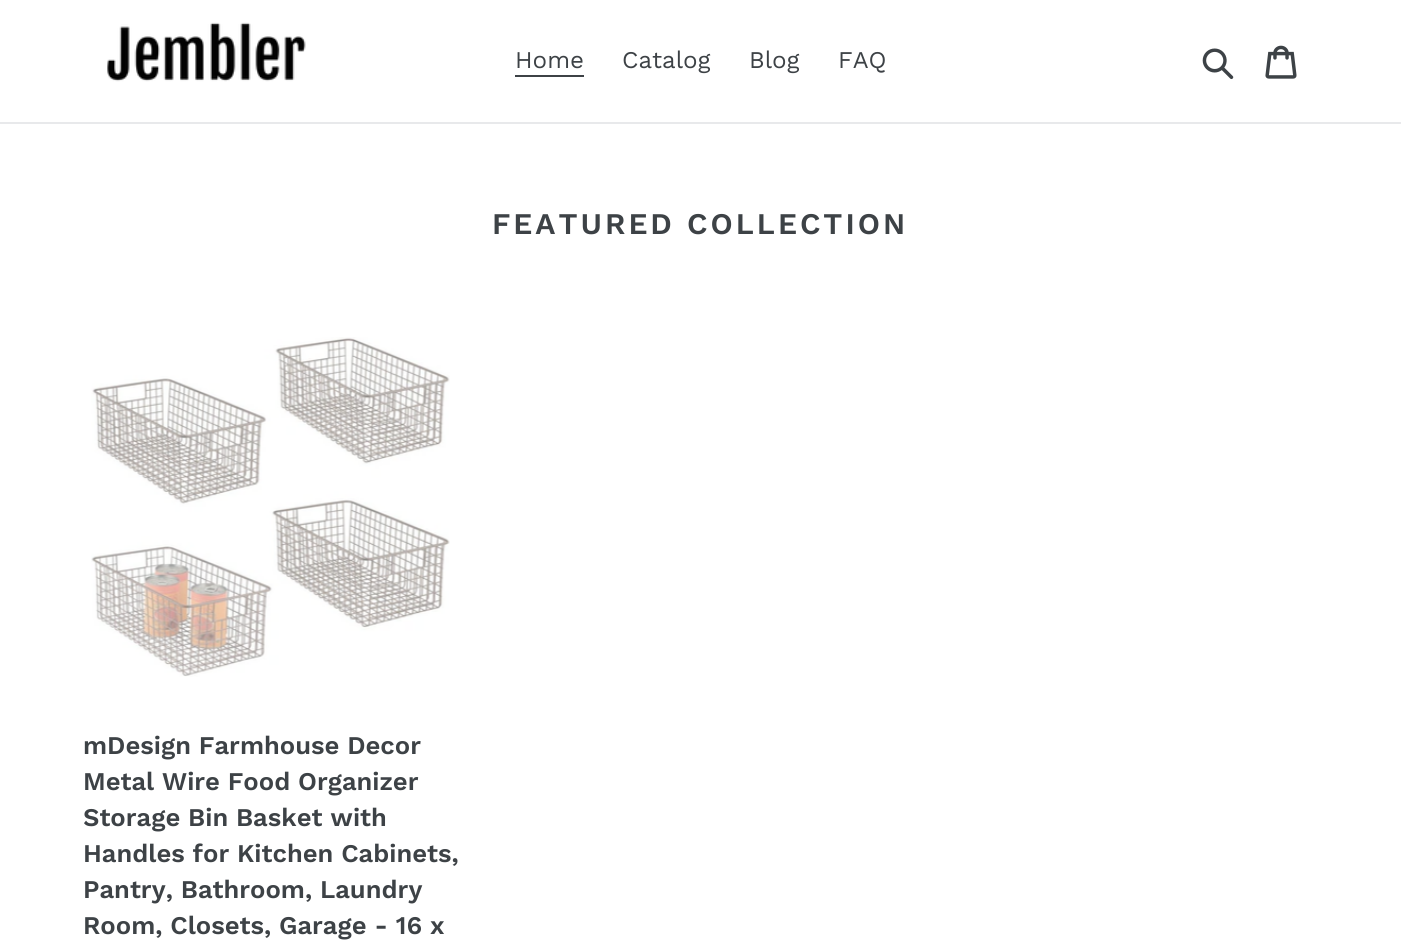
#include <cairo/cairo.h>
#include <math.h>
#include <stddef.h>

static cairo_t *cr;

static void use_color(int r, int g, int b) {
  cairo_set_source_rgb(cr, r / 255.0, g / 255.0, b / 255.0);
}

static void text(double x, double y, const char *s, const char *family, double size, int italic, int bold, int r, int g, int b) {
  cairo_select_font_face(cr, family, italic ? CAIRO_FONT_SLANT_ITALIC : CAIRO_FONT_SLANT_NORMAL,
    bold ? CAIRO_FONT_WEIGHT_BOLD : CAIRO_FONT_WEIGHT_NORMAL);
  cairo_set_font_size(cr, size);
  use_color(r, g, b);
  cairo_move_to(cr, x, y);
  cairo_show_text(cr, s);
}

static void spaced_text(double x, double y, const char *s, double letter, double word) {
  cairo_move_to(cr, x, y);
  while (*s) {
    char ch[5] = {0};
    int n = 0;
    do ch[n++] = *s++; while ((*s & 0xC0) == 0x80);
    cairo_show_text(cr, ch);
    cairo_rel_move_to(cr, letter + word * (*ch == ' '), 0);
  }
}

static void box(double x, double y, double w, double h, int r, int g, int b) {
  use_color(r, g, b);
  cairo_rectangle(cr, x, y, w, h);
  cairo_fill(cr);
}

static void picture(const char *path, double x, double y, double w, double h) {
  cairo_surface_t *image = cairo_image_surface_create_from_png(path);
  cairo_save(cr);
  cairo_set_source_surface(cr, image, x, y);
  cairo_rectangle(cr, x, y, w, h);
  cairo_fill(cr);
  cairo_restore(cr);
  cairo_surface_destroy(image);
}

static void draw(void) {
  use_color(255, 255, 255);
  cairo_paint(cr);
  box(0, 122, 1401, 2, 232, 233, 235);
  picture("img_01.png", 107, 22, 199, 60);
  box(515, 75, 69, 2, 61, 66, 70);
  picture("img_02.png", 1202, 48, 32, 32);
  picture("img_03.png", 1265, 45, 32, 34);
  picture("img_04.png", 91, 337, 359, 340);
  text(515, 68, "Home", "Work Sans", 24, 0, 0, 61, 66, 70);
  text(622, 68, "Catalog", "Work Sans", 24, 0, 0, 61, 66, 70);
  text(749, 68, "Blog", "Work Sans", 24, 0, 0, 61, 66, 70);
  text(838, 68, "FAQ", "Work Sans", 24, 0, 0, 61, 66, 70);
  cairo_select_font_face(cr, "Work Sans SemiBold", CAIRO_FONT_SLANT_NORMAL, CAIRO_FONT_WEIGHT_NORMAL);
  cairo_set_font_size(cr, 30);
  spaced_text(492, 234, "FEATURED COLLECTION", 3, 0);
  text(83, 754, "mDesign Farmhouse Decor", "Work Sans SemiBold", 25.5, 0, 0, 61, 66, 70);
  text(83, 790, "Metal Wire Food Organizer", "Work Sans SemiBold", 25.5, 0, 0, 61, 66, 70);
  text(83, 826, "Storage Bin Basket with", "Work Sans SemiBold", 25.5, 0, 0, 61, 66, 70);
  text(83, 862, "Handles for Kitchen Cabinets,", "Work Sans SemiBold", 25.5, 0, 0, 61, 66, 70);
  text(83, 898, "Pantry, Bathroom, Laundry", "Work Sans SemiBold", 25.5, 0, 0, 61, 66, 70);
  text(83, 934, "Room, Closets, Garage - 16 x", "Work Sans SemiBold", 25.5, 0, 0, 61, 66, 70);
}

int main(void) {
  cairo_surface_t *surface = cairo_image_surface_create(CAIRO_FORMAT_RGB24, 1401, 951);
  cr = cairo_create(surface);
  cairo_font_options_t *options = cairo_font_options_create();
  cairo_font_options_set_hint_metrics(options, CAIRO_HINT_METRICS_OFF);
  cairo_font_options_set_hint_style(options, CAIRO_HINT_STYLE_NONE);
  cairo_set_font_options(cr, options);
  cairo_set_miter_limit(cr, 4);
  draw();
  cairo_surface_write_to_png(surface, "out.png");
  cairo_font_options_destroy(options);
  cairo_destroy(cr);
  cairo_surface_destroy(surface);
  return 0;
}
